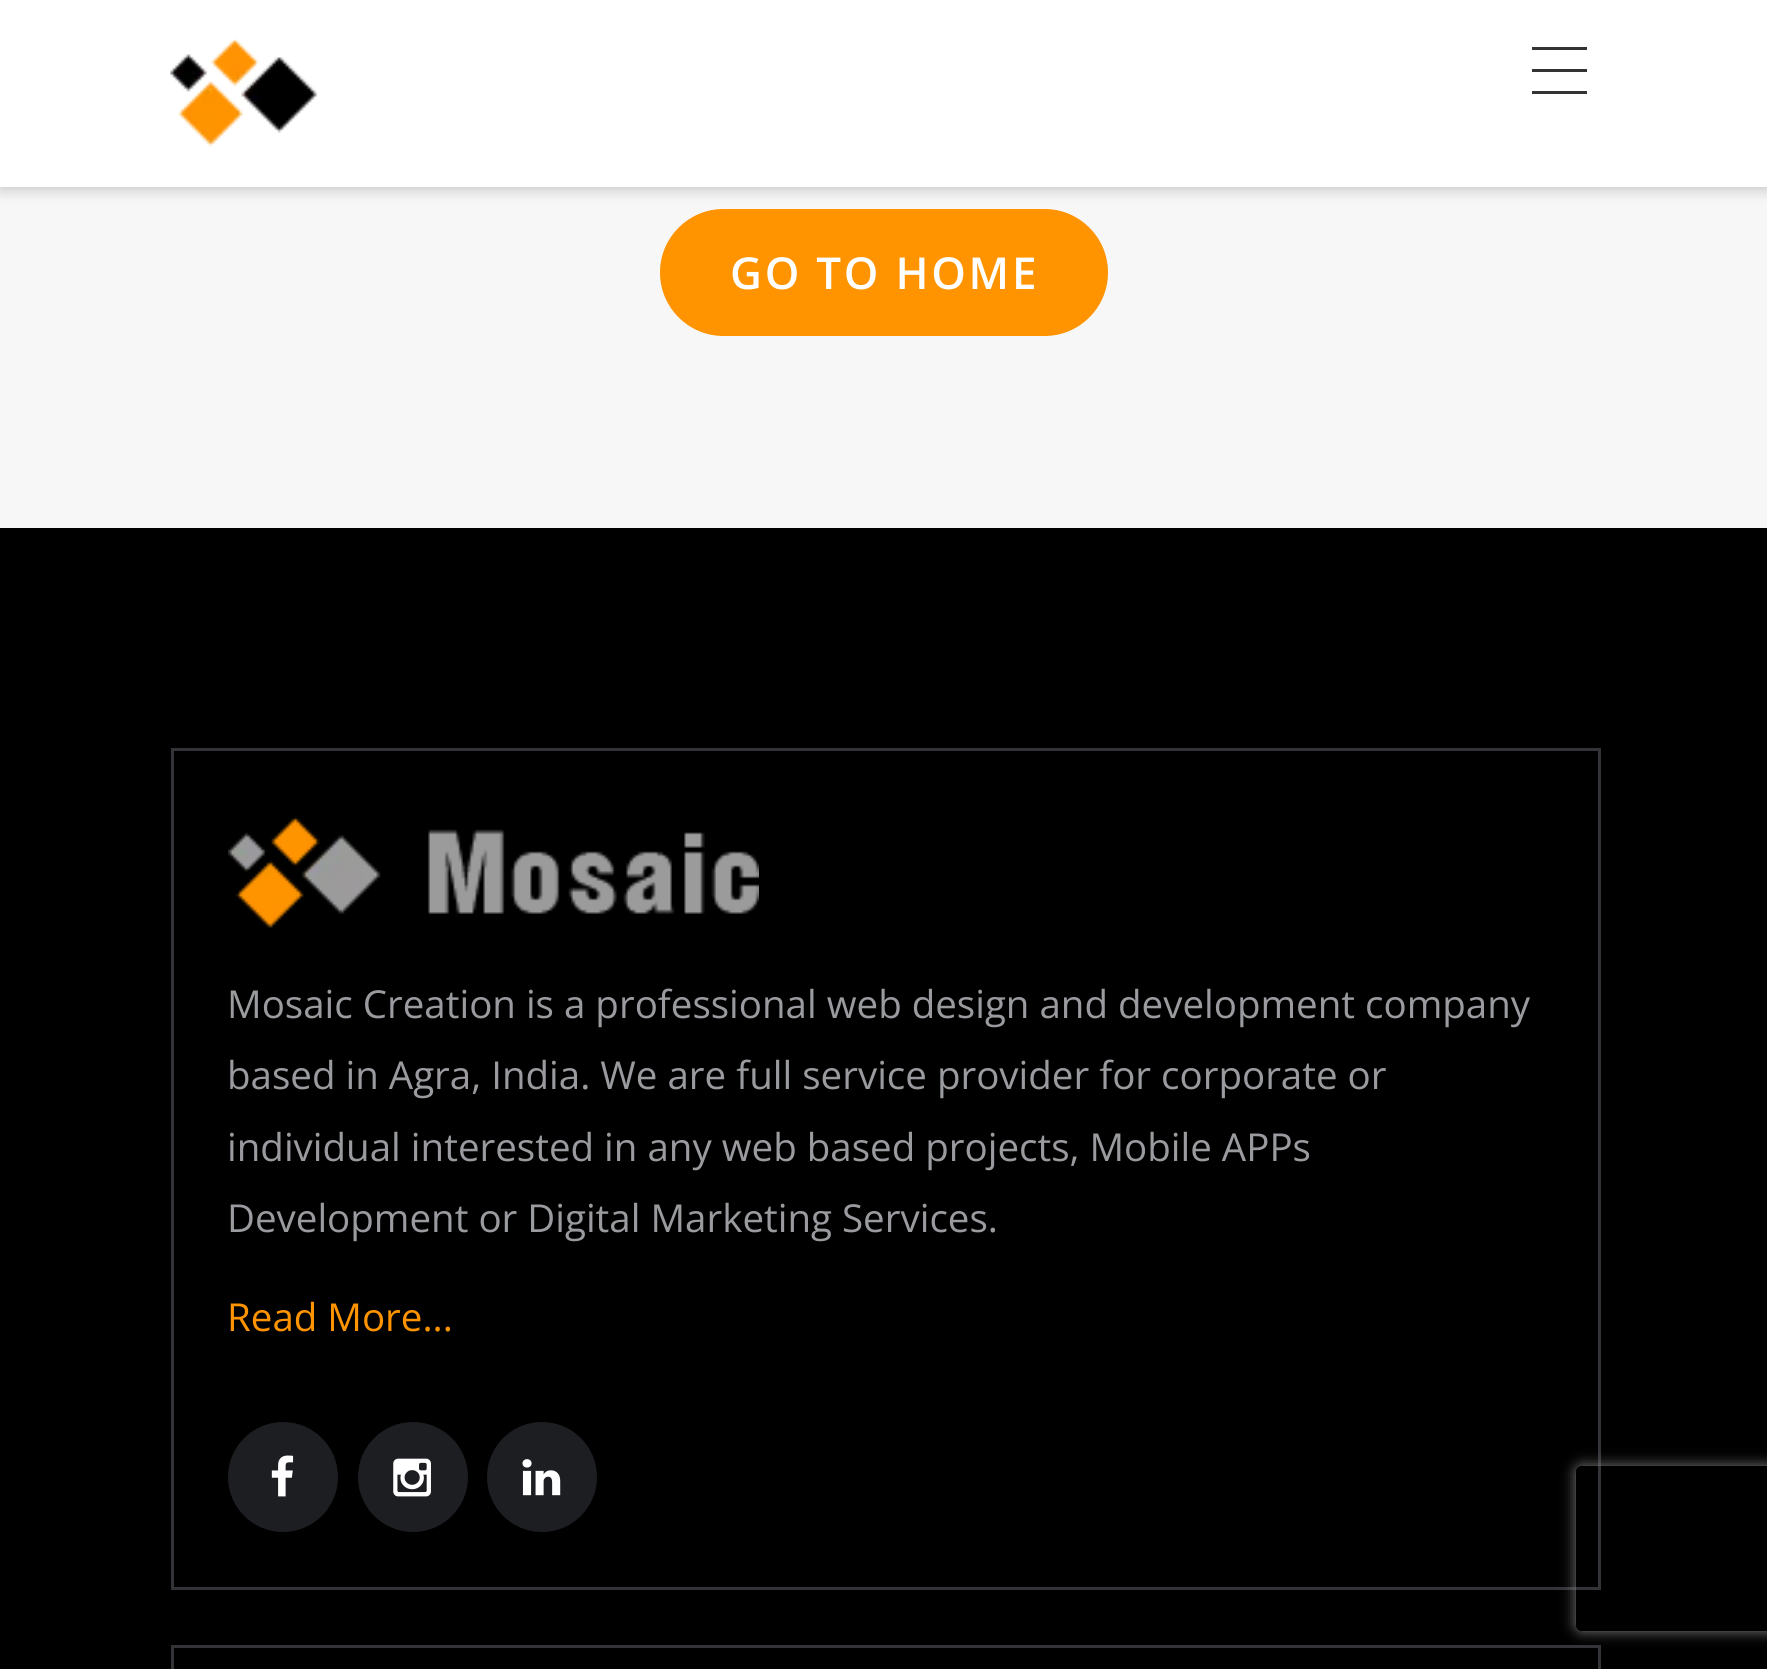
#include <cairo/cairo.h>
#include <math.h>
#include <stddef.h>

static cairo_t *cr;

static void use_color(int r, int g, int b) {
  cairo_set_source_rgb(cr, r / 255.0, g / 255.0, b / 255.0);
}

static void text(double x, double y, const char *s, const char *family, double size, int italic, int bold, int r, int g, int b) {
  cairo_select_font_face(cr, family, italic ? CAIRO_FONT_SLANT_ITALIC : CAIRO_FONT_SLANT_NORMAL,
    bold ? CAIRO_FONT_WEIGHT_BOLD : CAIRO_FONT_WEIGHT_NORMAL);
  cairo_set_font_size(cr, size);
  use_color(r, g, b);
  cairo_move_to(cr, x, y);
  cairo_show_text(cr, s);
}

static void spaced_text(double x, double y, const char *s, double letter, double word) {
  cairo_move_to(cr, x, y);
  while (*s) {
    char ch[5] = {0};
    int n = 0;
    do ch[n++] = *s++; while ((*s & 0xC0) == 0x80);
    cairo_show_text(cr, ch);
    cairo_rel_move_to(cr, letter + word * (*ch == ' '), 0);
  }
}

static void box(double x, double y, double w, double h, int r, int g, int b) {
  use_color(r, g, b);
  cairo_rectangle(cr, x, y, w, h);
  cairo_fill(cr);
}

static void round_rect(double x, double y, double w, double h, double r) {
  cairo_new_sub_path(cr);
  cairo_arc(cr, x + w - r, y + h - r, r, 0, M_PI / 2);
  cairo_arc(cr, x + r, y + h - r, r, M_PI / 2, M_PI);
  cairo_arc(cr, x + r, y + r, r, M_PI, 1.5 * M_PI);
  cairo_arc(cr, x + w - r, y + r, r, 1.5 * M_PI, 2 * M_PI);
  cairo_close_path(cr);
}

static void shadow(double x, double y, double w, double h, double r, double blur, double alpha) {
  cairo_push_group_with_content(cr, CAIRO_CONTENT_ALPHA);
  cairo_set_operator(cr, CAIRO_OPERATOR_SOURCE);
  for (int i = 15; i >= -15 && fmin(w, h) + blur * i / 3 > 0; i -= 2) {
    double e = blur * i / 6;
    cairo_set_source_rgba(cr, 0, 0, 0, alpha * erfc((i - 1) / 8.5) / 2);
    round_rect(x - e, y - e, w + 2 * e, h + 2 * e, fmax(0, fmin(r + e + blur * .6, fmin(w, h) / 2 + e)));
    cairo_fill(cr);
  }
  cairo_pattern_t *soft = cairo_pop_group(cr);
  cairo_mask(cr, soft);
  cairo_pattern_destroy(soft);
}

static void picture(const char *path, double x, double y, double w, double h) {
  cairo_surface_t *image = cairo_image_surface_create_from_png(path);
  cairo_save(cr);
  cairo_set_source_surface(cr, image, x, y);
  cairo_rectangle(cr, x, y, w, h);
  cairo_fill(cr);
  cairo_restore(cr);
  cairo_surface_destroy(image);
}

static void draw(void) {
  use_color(247, 247, 247);
  cairo_paint(cr);
  use_color(255, 148, 0);
  round_rect(660, 209, 448, 127, 63.5);
  cairo_fill(cr);
  use_color(0, 0, 0);
  shadow(0, 3, 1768, 187, 0, 7, 0.2);
  box(0, 0, 1767, 187, 255, 255, 255);
  picture("img_01.png", 170, 38, 148, 109);
  box(1532, 69, 55, 3, 51, 51, 51);
  box(1532, 47, 55, 3, 51, 51, 51);
  box(1532, 91, 55, 3, 51, 51, 51);
  box(0, 528, 1767, 1141, 0, 0, 0);
  cairo_rectangle(cr, 172.5, 749.5, 1427, 839);
  use_color(50, 52, 56);
  cairo_set_line_width(cr, 3);
  cairo_stroke(cr);
  picture("img_02.png", 228, 816, 531, 112);
  use_color(28, 30, 34);
  cairo_arc(cr, 283, 1477, 55, 0, 2 * M_PI);
  cairo_fill(cr);
  picture("img_03.png", 271, 1455, 23, 42);
  cairo_arc(cr, 413, 1477, 55, 0, 2 * M_PI);
  cairo_fill(cr);
  picture("img_04.png", 393, 1458, 38, 39);
  cairo_arc(cr, 542, 1477, 55, 0, 2 * M_PI);
  cairo_fill(cr);
  picture("img_05.png", 522, 1459, 39, 37);
  cairo_rectangle(cr, 172.5, 1646.5, 1427, 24);
  use_color(50, 52, 56);
  cairo_stroke(cr);
  cairo_save(cr);
  cairo_set_fill_rule(cr, CAIRO_FILL_RULE_EVEN_ODD);
  cairo_new_path(cr);
  cairo_move_to(cr, 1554, 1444);
  cairo_line_to(cr, 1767, 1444);
  cairo_line_to(cr, 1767, 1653);
  cairo_line_to(cr, 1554, 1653);
  cairo_close_path(cr);
  cairo_move_to(cr, 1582, 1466);
  cairo_line_to(cr, 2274, 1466);
  cairo_curve_to(cr, 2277.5, 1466, 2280, 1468.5, 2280, 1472);
  cairo_line_to(cr, 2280, 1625);
  cairo_curve_to(cr, 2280, 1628.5, 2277.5, 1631, 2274, 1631);
  cairo_line_to(cr, 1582, 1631);
  cairo_curve_to(cr, 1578.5, 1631, 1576, 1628.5, 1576, 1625);
  cairo_line_to(cr, 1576, 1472);
  cairo_curve_to(cr, 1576, 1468.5, 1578.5, 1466, 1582, 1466);
  cairo_close_path(cr);
  cairo_clip(cr);
  use_color(128, 128, 128);
  shadow(1576, 1466, 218, 165, 6, 7, 1);
  cairo_restore(cr);
  cairo_select_font_face(cr, "Open Sans SemiBold", CAIRO_FONT_SLANT_NORMAL, CAIRO_FONT_WEIGHT_NORMAL);
  cairo_set_font_size(cr, 44);
  use_color(255, 255, 255);
  spaced_text(730, 289, "GO TO HOME", 2.75, 0);
  text(227, 1018, "Mosaic Creation is a professional web design and development company", "Open Sans", 38.5, 0, 0, 153, 155, 159);
  text(227, 1089, "based in Agra, India. We are full service provider for corporate or", "Open Sans", 38.5, 0, 0, 153, 155, 159);
  text(227, 1161, "individual interested in any web based projects, Mobile APPs", "Open Sans", 38.5, 0, 0, 153, 155, 159);
  text(227, 1232, "Development or Digital Marketing Services.", "Open Sans", 38.5, 0, 0, 153, 155, 159);
  text(227, 1331, "Read More...", "Open Sans", 38.5, 0, 0, 255, 148, 0);
}

int main(void) {
  cairo_surface_t *surface = cairo_image_surface_create(CAIRO_FORMAT_RGB24, 1767, 1669);
  cr = cairo_create(surface);
  cairo_font_options_t *options = cairo_font_options_create();
  cairo_font_options_set_hint_metrics(options, CAIRO_HINT_METRICS_OFF);
  cairo_font_options_set_hint_style(options, CAIRO_HINT_STYLE_NONE);
  cairo_set_font_options(cr, options);
  cairo_set_miter_limit(cr, 4);
  draw();
  cairo_surface_write_to_png(surface, "out.png");
  cairo_font_options_destroy(options);
  cairo_destroy(cr);
  cairo_surface_destroy(surface);
  return 0;
}
